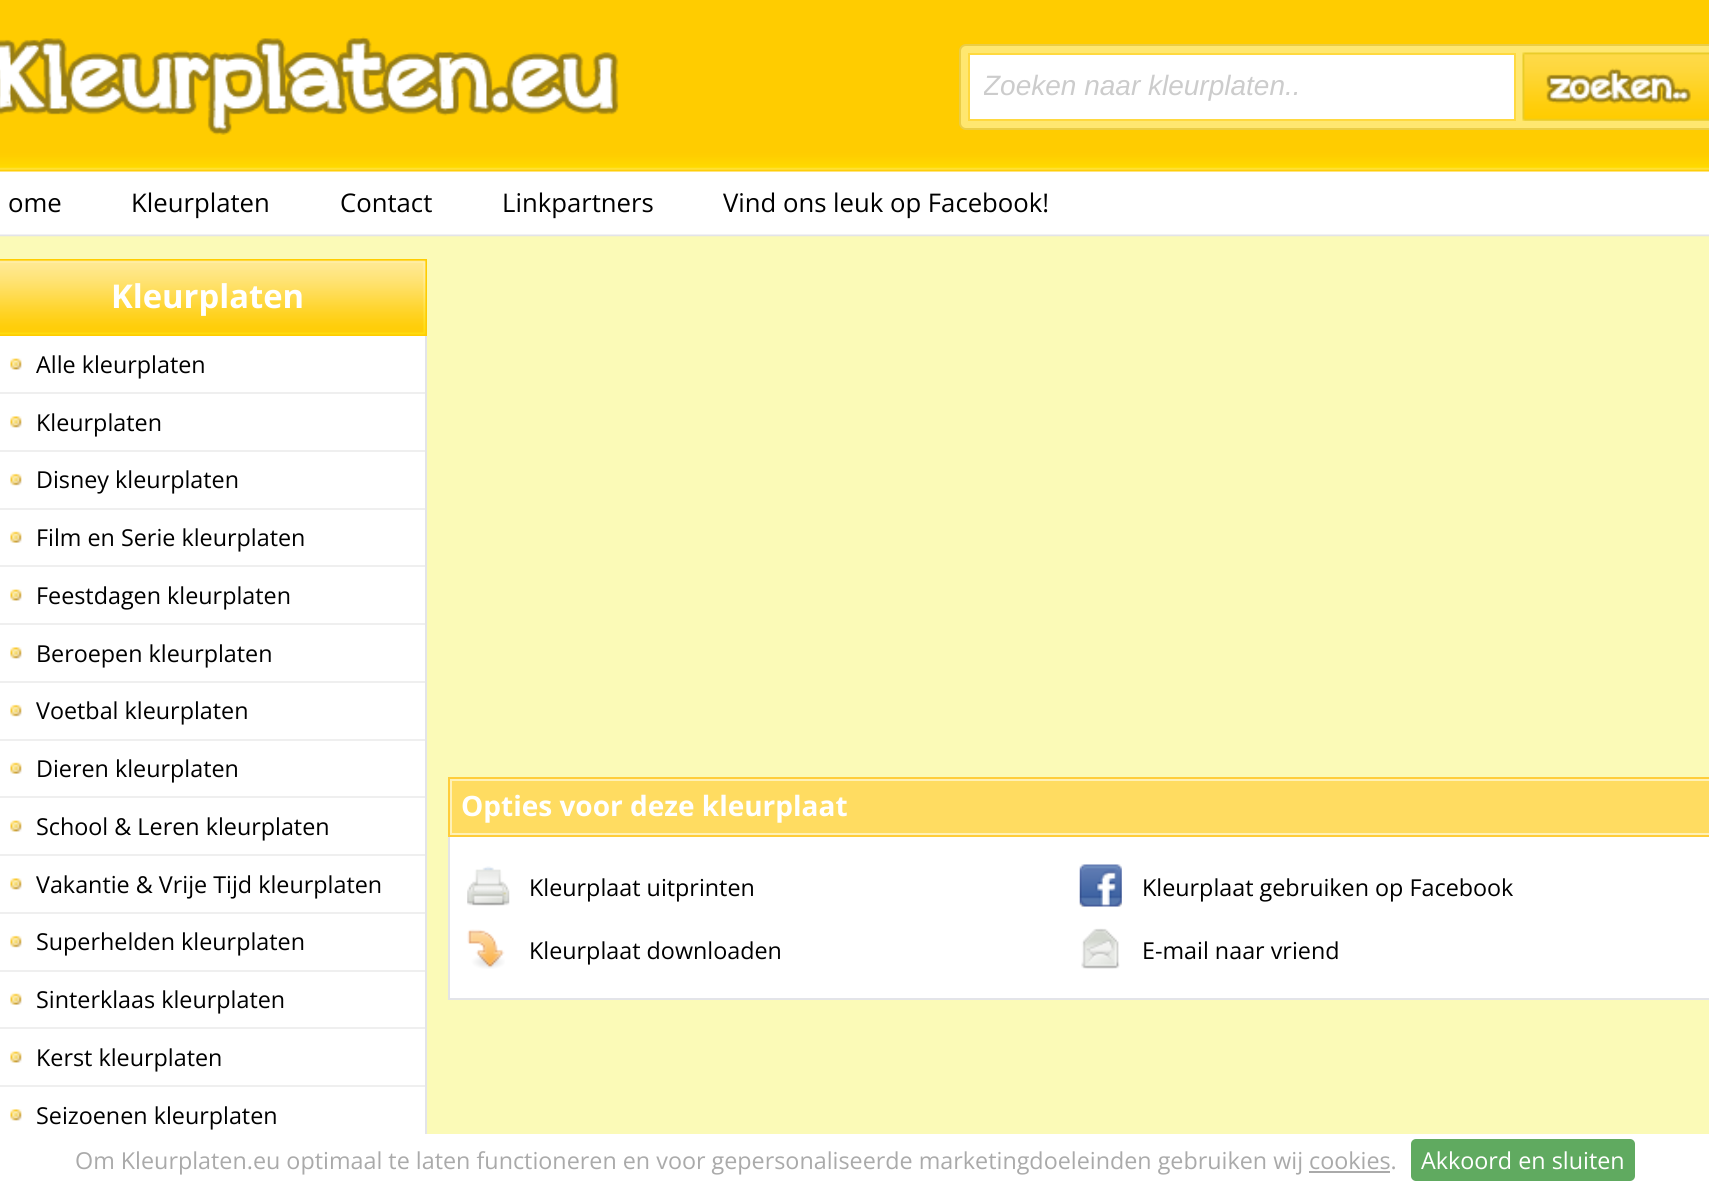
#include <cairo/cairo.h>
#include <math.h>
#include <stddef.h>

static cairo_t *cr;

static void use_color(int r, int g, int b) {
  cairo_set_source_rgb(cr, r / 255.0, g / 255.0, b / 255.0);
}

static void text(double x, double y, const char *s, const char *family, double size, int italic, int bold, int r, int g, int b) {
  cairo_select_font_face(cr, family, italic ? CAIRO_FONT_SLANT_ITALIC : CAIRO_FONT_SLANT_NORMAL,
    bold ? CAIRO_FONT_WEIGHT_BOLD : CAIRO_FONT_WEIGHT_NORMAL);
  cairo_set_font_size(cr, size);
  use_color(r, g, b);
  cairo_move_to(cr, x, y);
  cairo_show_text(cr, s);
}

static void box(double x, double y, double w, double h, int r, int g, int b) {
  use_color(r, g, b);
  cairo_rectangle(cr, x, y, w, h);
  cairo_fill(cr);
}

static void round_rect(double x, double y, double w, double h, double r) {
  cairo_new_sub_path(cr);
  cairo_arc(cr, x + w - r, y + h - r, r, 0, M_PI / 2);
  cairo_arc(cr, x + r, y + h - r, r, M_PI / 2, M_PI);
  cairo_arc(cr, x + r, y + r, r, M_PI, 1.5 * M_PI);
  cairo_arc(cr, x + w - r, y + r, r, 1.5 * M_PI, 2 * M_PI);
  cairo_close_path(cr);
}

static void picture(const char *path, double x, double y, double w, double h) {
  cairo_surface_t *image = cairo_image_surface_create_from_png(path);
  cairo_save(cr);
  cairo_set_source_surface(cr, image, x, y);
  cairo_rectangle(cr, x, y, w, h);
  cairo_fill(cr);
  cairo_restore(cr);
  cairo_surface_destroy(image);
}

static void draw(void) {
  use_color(251, 250, 183);
  cairo_paint(cr);
  picture("img_01.png", 0, 0, 1709, 237);
  picture("img_02.png", 0, 36, 619, 99);
  use_color(255, 231, 112);
  round_rect(960, 45, 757, 84, 6);
  cairo_fill_preserve(cr);
  use_color(235, 205, 70);
  cairo_stroke(cr);
  use_color(255, 255, 255);
  cairo_rectangle(cr, 969, 54, 546, 66);
  cairo_fill_preserve(cr);
  use_color(255, 217, 63);
  cairo_stroke(cr);
  picture("img_03.png", 1522, 52, 187, 69);
  picture("img_04.png", 0, 259, 427, 77);
  box(0, 336, 425, 798, 255, 255, 255);
  box(425, 336, 2, 798, 227, 228, 233);
  picture("img_05.png", 10, 358, 12, 12);
  box(0, 392, 425, 2, 239, 239, 239);
  picture("img_06.png", 10, 416, 12, 12);
  box(0, 450, 425, 2, 239, 239, 239);
  picture("img_07.png", 10, 473, 12, 13);
  box(0, 508, 425, 2, 239, 239, 239);
  picture("img_08.png", 10, 531, 12, 12);
  box(0, 565, 425, 2, 239, 239, 239);
  picture("img_05.png", 10, 589, 12, 12);
  box(0, 623, 425, 2, 239, 239, 239);
  picture("img_06.png", 10, 647, 12, 12);
  box(0, 681, 425, 2, 239, 239, 239);
  picture("img_07.png", 10, 704, 12, 13);
  box(0, 739, 425, 2, 239, 239, 239);
  picture("img_08.png", 10, 762, 12, 12);
  box(0, 796, 425, 2, 239, 239, 239);
  picture("img_05.png", 10, 820, 12, 12);
  box(0, 854, 425, 2, 239, 239, 239);
  picture("img_06.png", 10, 878, 12, 12);
  box(0, 912, 425, 2, 239, 239, 239);
  picture("img_07.png", 10, 935, 12, 13);
  box(0, 970, 425, 2, 239, 239, 239);
  picture("img_08.png", 10, 993, 12, 12);
  box(0, 1027, 425, 2, 239, 239, 239);
  picture("img_05.png", 10, 1051, 12, 12);
  box(0, 1085, 425, 2, 239, 239, 239);
  picture("img_06.png", 10, 1109, 12, 12);
  cairo_rectangle(cr, 450, 779, 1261, 56);
  use_color(255, 205, 58);
  cairo_set_line_width(cr, 4);
  cairo_stroke(cr);
  cairo_rectangle(cr, 451, 780, 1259, 54);
  use_color(255, 241, 183);
  cairo_set_line_width(cr, 2);
  cairo_stroke(cr);
  box(452, 781, 1257, 52, 255, 220, 97);
  box(450, 837, 1259, 161, 255, 255, 255);
  box(448, 998, 1261, 2, 227, 228, 233);
  box(448, 837, 2, 162, 227, 228, 233);
  picture("img_09.png", 467, 866, 43, 40);
  picture("img_10.png", 1079, 864, 43, 43);
  picture("img_11.png", 467, 929, 38, 40);
  picture("img_12.png", 1081, 928, 39, 41);
  box(0, 1134, 1709, 52, 255, 255, 255);
  box(1309, 1171, 81, 2, 170, 170, 170);
  use_color(96, 170, 96);
  round_rect(1411, 1139, 224, 42, 5);
  cairo_fill(cr);
  cairo_save(cr);
  cairo_rectangle(cr, 984, 72, 530, 31);
  cairo_clip(cr);
  text(983, 95, "Zoeken naar kleurplaten..", "Liberation Sans", 28, 1, 0, 204, 204, 204);
  cairo_restore(cr);
  text(8, 212, "ome", "Open Sans", 25.7, 0, 0, 0, 0, 0);
  text(131, 212, "Kleurplaten", "Open Sans", 25.7, 0, 0, 0, 0, 0);
  text(340, 212, "Contact", "Open Sans", 25.7, 0, 0, 0, 0, 0);
  text(502, 212, "Linkpartners", "Open Sans", 25.7, 0, 0, 0, 0, 0);
  text(723, 212, "Vind ons leuk op Facebook!", "Open Sans", 25.7, 0, 0, 0, 0, 0);
  text(111, 308, "Kleurplaten", "Open Sans", 32.75, 0, 1, 255, 255, 255);
  text(36, 373, "Alle kleurplaten", "Open Sans", 23.33, 0, 0, 0, 0, 0);
  text(36, 431, "Kleurplaten", "Open Sans", 23.33, 0, 0, 0, 0, 0);
  text(36, 488, "Disney kleurplaten", "Open Sans", 23.33, 0, 0, 0, 0, 0);
  text(36, 546, "Film en Serie kleurplaten", "Open Sans", 23.33, 0, 0, 0, 0, 0);
  text(36, 604, "Feestdagen kleurplaten", "Open Sans", 23.33, 0, 0, 0, 0, 0);
  text(36, 662, "Beroepen kleurplaten", "Open Sans", 23.33, 0, 0, 0, 0, 0);
  text(36, 719, "Voetbal kleurplaten", "Open Sans", 23.33, 0, 0, 0, 0, 0);
  text(36, 777, "Dieren kleurplaten", "Open Sans", 23.33, 0, 0, 0, 0, 0);
  text(36, 835, "School & Leren kleurplaten", "Open Sans", 23.33, 0, 0, 0, 0, 0);
  text(36, 893, "Vakantie & Vrije Tijd kleurplaten", "Open Sans", 23.33, 0, 0, 0, 0, 0);
  text(36, 950, "Superhelden kleurplaten", "Open Sans", 23.33, 0, 0, 0, 0, 0);
  text(36, 1008, "Sinterklaas kleurplaten", "Open Sans", 23.33, 0, 0, 0, 0, 0);
  text(36, 1066, "Kerst kleurplaten", "Open Sans", 23.33, 0, 0, 0, 0, 0);
  text(36, 1124, "Seizoenen kleurplaten", "Open Sans", 23.33, 0, 0, 0, 0, 0);
  text(461, 816, "Opties voor deze kleurplaat", "Open Sans", 28, 0, 1, 255, 255, 255);
  text(529, 896, "Kleurplaat uitprinten", "Open Sans", 23.33, 0, 0, 0, 0, 0);
  text(1142, 896, "Kleurplaat gebruiken op Facebook", "Open Sans", 23.33, 0, 0, 0, 0, 0);
  text(529, 959, "Kleurplaat downloaden", "Open Sans", 23.33, 0, 0, 0, 0, 0);
  text(1142, 959, "E-mail naar vriend", "Open Sans", 23.33, 0, 0, 0, 0, 0);
  text(75, 1169, "Om Kleurplaten.eu optimaal te laten functioneren en voor gepersonaliseerde marketingdoeleinden gebruiken wij", "Open Sans", 23.33, 0, 0, 170, 170, 170);
  text(1309, 1169, "cookies.", "Open Sans", 23.33, 0, 0, 170, 170, 170);
  text(1421, 1169, "Akkoord en sluiten", "Open Sans", 23.33, 0, 0, 255, 255, 255);
}

int main(void) {
  cairo_surface_t *surface = cairo_image_surface_create(CAIRO_FORMAT_RGB24, 1709, 1186);
  cr = cairo_create(surface);
  cairo_font_options_t *options = cairo_font_options_create();
  cairo_font_options_set_hint_metrics(options, CAIRO_HINT_METRICS_OFF);
  cairo_font_options_set_hint_style(options, CAIRO_HINT_STYLE_NONE);
  cairo_set_font_options(cr, options);
  cairo_set_miter_limit(cr, 4);
  draw();
  cairo_surface_write_to_png(surface, "out.png");
  cairo_font_options_destroy(options);
  cairo_destroy(cr);
  cairo_surface_destroy(surface);
  return 0;
}
